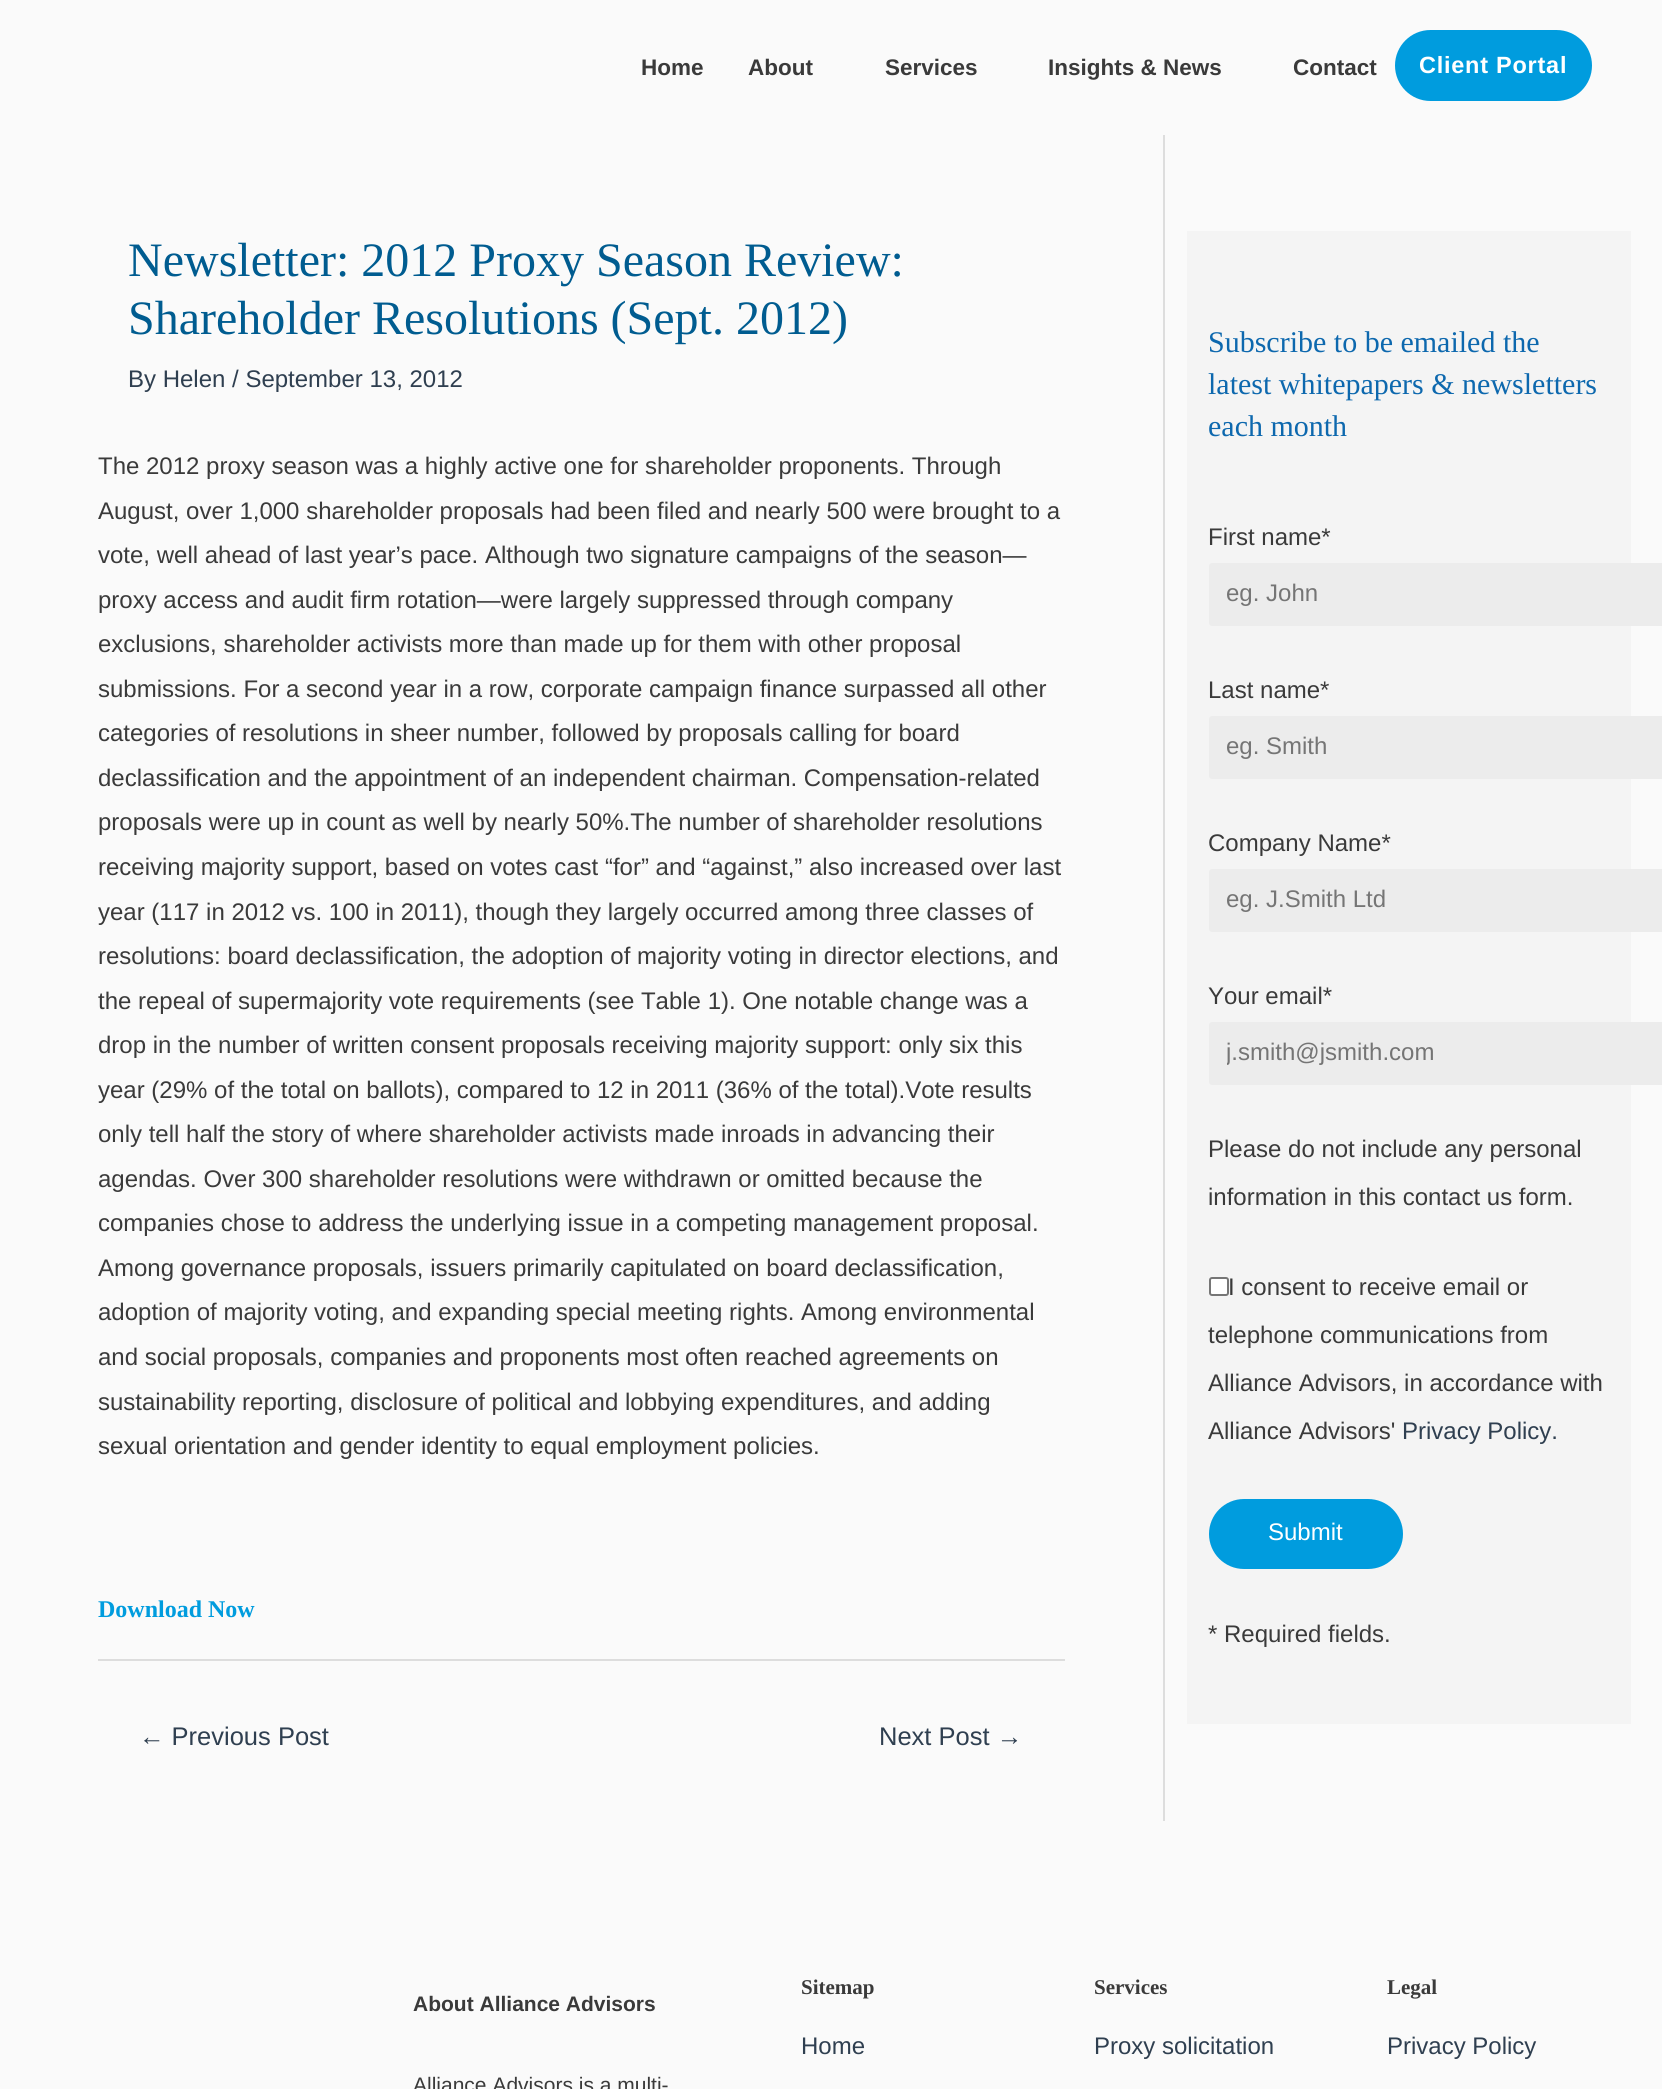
#include <cairo/cairo.h>
#include <math.h>
#include <stddef.h>

static cairo_t *cr;

static void use_color(int r, int g, int b) {
  cairo_set_source_rgb(cr, r / 255.0, g / 255.0, b / 255.0);
}

static void text(double x, double y, const char *s, const char *family, double size, int italic, int bold, int r, int g, int b) {
  cairo_select_font_face(cr, family, italic ? CAIRO_FONT_SLANT_ITALIC : CAIRO_FONT_SLANT_NORMAL,
    bold ? CAIRO_FONT_WEIGHT_BOLD : CAIRO_FONT_WEIGHT_NORMAL);
  cairo_set_font_size(cr, size);
  use_color(r, g, b);
  cairo_move_to(cr, x, y);
  cairo_show_text(cr, s);
}

static void spaced_text(double x, double y, const char *s, double letter, double word) {
  cairo_move_to(cr, x, y);
  while (*s) {
    char ch[5] = {0};
    int n = 0;
    do ch[n++] = *s++; while ((*s & 0xC0) == 0x80);
    cairo_show_text(cr, ch);
    cairo_rel_move_to(cr, letter + word * (*ch == ' '), 0);
  }
}

static void box(double x, double y, double w, double h, int r, int g, int b) {
  use_color(r, g, b);
  cairo_rectangle(cr, x, y, w, h);
  cairo_fill(cr);
}

static void round_rect(double x, double y, double w, double h, double r) {
  cairo_new_sub_path(cr);
  cairo_arc(cr, x + w - r, y + h - r, r, 0, M_PI / 2);
  cairo_arc(cr, x + r, y + h - r, r, M_PI / 2, M_PI);
  cairo_arc(cr, x + r, y + r, r, M_PI, 1.5 * M_PI);
  cairo_arc(cr, x + w - r, y + r, r, 1.5 * M_PI, 2 * M_PI);
  cairo_close_path(cr);
}

static void draw(void) {
  use_color(250, 250, 250);
  cairo_paint(cr);
  use_color(0, 156, 222);
  round_rect(1395, 30, 197, 71, 35.5);
  cairo_fill(cr);
  box(1163, 135, 2, 1686, 221, 221, 221);
  box(98, 1659, 967, 2, 221, 221, 221);
  box(1187, 231, 444, 1493, 244, 244, 244);
  use_color(236, 236, 236);
  round_rect(1209, 563, 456, 63, 3);
  cairo_fill(cr);
  round_rect(1209, 716, 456, 63, 3);
  cairo_fill(cr);
  round_rect(1209, 869, 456, 63, 3);
  cairo_fill(cr);
  round_rect(1209, 1022, 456, 63, 3);
  cairo_fill(cr);
  use_color(255, 255, 255);
  round_rect(1210, 1278, 18, 17, 2);
  cairo_fill_preserve(cr);
  use_color(118, 118, 118);
  cairo_stroke(cr);
  use_color(0, 156, 222);
  round_rect(1209, 1499, 194, 70, 35);
  cairo_fill(cr);
  text(641, 75, "Home", "Liberation Sans", 22.5, 0, 1, 58, 58, 58);
  text(748, 75, "About", "Liberation Sans", 22.5, 0, 1, 58, 58, 58);
  text(885, 75, "Services", "Liberation Sans", 22.5, 0, 1, 58, 58, 58);
  text(1048, 75, "Insights & News", "Liberation Sans", 22.5, 0, 1, 58, 58, 58);
  text(1293, 75, "Contact", "Liberation Sans", 22.5, 0, 1, 58, 58, 58);
  cairo_set_font_size(cr, 23.5);
  use_color(255, 255, 255);
  spaced_text(1419, 73, "Client Portal", 0.75, 0);
  text(128, 276, "Newsletter: 2012 Proxy Season Review:", "Liberation Serif", 48, 0, 0, 0, 92, 144);
  text(128, 334, "Shareholder Resolutions (Sept. 2012)", "Liberation Serif", 48, 0, 0, 0, 92, 144);
  text(128, 387, "By Helen / September 13, 2012", "Liberation Sans", 24, 0, 0, 47, 63, 80);
  text(98, 474, "The 2012 proxy season was a highly active one for shareholder proponents. Through", "Liberation Sans", 24, 0, 0, 58, 58, 58);
  text(98, 519, "August, over 1,000 shareholder proposals had been filed and nearly 500 were brought to a", "Liberation Sans", 24, 0, 0, 58, 58, 58);
  text(98, 563, "vote, well ahead of last year’s pace. Although two signature campaigns of the season—", "Liberation Sans", 24, 0, 0, 58, 58, 58);
  text(98, 608, "proxy access and audit firm rotation—were largely suppressed through company", "Liberation Sans", 24, 0, 0, 58, 58, 58);
  text(98, 652, "exclusions, shareholder activists more than made up for them with other proposal", "Liberation Sans", 24, 0, 0, 58, 58, 58);
  text(98, 697, "submissions. For a second year in a row, corporate campaign finance surpassed all other", "Liberation Sans", 24, 0, 0, 58, 58, 58);
  text(98, 741, "categories of resolutions in sheer number, followed by proposals calling for board", "Liberation Sans", 24, 0, 0, 58, 58, 58);
  text(98, 786, "declassification and the appointment of an independent chairman. Compensation-related", "Liberation Sans", 24, 0, 0, 58, 58, 58);
  text(98, 830, "proposals were up in count as well by nearly 50%.The number of shareholder resolutions", "Liberation Sans", 24, 0, 0, 58, 58, 58);
  text(98, 875, "receiving majority support, based on votes cast “for” and “against,” also increased over last", "Liberation Sans", 24, 0, 0, 58, 58, 58);
  text(98, 920, "year (117 in 2012 vs. 100 in 2011), though they largely occurred among three classes of", "Liberation Sans", 24, 0, 0, 58, 58, 58);
  text(98, 964, "resolutions: board declassification, the adoption of majority voting in director elections, and", "Liberation Sans", 24, 0, 0, 58, 58, 58);
  text(98, 1009, "the repeal of supermajority vote requirements (see Table 1). One notable change was a", "Liberation Sans", 24, 0, 0, 58, 58, 58);
  text(98, 1053, "drop in the number of written consent proposals receiving majority support: only six this", "Liberation Sans", 24, 0, 0, 58, 58, 58);
  text(98, 1098, "year (29% of the total on ballots), compared to 12 in 2011 (36% of the total).Vote results", "Liberation Sans", 24, 0, 0, 58, 58, 58);
  text(98, 1142, "only tell half the story of where shareholder activists made inroads in advancing their", "Liberation Sans", 24, 0, 0, 58, 58, 58);
  text(98, 1187, "agendas. Over 300 shareholder resolutions were withdrawn or omitted because the", "Liberation Sans", 24, 0, 0, 58, 58, 58);
  text(98, 1231, "companies chose to address the underlying issue in a competing management proposal.", "Liberation Sans", 24, 0, 0, 58, 58, 58);
  text(98, 1276, "Among governance proposals, issuers primarily capitulated on board declassification,", "Liberation Sans", 24, 0, 0, 58, 58, 58);
  text(98, 1320, "adoption of majority voting, and expanding special meeting rights. Among environmental", "Liberation Sans", 24, 0, 0, 58, 58, 58);
  text(98, 1365, "and social proposals, companies and proponents most often reached agreements on", "Liberation Sans", 24, 0, 0, 58, 58, 58);
  text(98, 1410, "sustainability reporting, disclosure of political and lobbying expenditures, and adding", "Liberation Sans", 24, 0, 0, 58, 58, 58);
  text(98, 1454, "sexual orientation and gender identity to equal employment policies.", "Liberation Sans", 24, 0, 0, 58, 58, 58);
  text(98, 1617, "Download Now", "Liberation Serif", 24, 0, 1, 0, 156, 222);
  text(139, 1745, "← Previous Post", "Liberation Sans", 25.5, 0, 0, 47, 63, 80);
  text(879, 1745, "Next Post →", "Liberation Sans", 25.5, 0, 0, 47, 63, 80);
  text(1208, 352, "Subscribe to be emailed the", "Liberation Serif", 30, 0, 0, 13, 104, 174);
  text(1208, 394, "latest whitepapers & newsletters", "Liberation Serif", 30, 0, 0, 13, 104, 174);
  text(1208, 436, "each month", "Liberation Serif", 30, 0, 0, 13, 104, 174);
  text(1208, 545, "First name*", "Liberation Sans", 24, 0, 0, 58, 58, 58);
  text(1226, 601, "eg. John", "Liberation Sans", 24, 0, 0, 117, 117, 117);
  text(1208, 698, "Last name*", "Liberation Sans", 24, 0, 0, 58, 58, 58);
  text(1226, 754, "eg. Smith", "Liberation Sans", 24, 0, 0, 117, 117, 117);
  text(1208, 851, "Company Name*", "Liberation Sans", 24, 0, 0, 58, 58, 58);
  text(1226, 907, "eg. J.Smith Ltd", "Liberation Sans", 24, 0, 0, 117, 117, 117);
  text(1208, 1004, "Your email*", "Liberation Sans", 24, 0, 0, 58, 58, 58);
  cairo_save(cr);
  cairo_rectangle(cr, 1227, 1040, 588, 27);
  cairo_clip(cr);
  text(1226, 1060, "j.smith@jsmith.com", "Liberation Sans", 24, 0, 0, 117, 117, 117);
  cairo_restore(cr);
  text(1208, 1157, "Please do not include any personal", "Liberation Sans", 24, 0, 0, 58, 58, 58);
  text(1208, 1205, "information in this contact us form.", "Liberation Sans", 24, 0, 0, 58, 58, 58);
  text(1228, 1295, "I consent to receive email or", "Liberation Sans", 24, 0, 0, 58, 58, 58);
  text(1208, 1343, "telephone communications from", "Liberation Sans", 24, 0, 0, 58, 58, 58);
  text(1208, 1391, "Alliance Advisors, in accordance with", "Liberation Sans", 24, 0, 0, 58, 58, 58);
  text(1208, 1439, "Alliance Advisors'", "Liberation Sans", 24, 0, 0, 58, 58, 58);
  text(1402, 1439, "Privacy Policy.", "Liberation Sans", 24, 0, 0, 47, 63, 80);
  text(1268, 1540, "Submit", "Liberation Sans", 24, 0, 0, 255, 255, 255);
  text(1208, 1642, "* Required fields.", "Liberation Sans", 24, 0, 0, 58, 58, 58);
  text(413, 2011, "About Alliance Advisors", "Liberation Sans", 21, 0, 1, 58, 58, 58);
  text(413, 2092, "Alliance Advisors is a multi-", "Liberation Sans", 21, 0, 0, 58, 58, 58);
  text(801, 1994, "Sitemap", "Liberation Serif", 21, 0, 1, 58, 58, 58);
  text(801, 2054, "Home", "Liberation Sans", 24, 0, 0, 47, 63, 80);
  text(1094, 1994, "Services", "Liberation Serif", 21, 0, 1, 58, 58, 58);
  text(1094, 2054, "Proxy solicitation", "Liberation Sans", 24, 0, 0, 47, 63, 80);
  text(1387, 1994, "Legal", "Liberation Serif", 21, 0, 1, 58, 58, 58);
  text(1387, 2054, "Privacy Policy", "Liberation Sans", 24, 0, 0, 47, 63, 80);
}

int main(void) {
  cairo_surface_t *surface = cairo_image_surface_create(CAIRO_FORMAT_RGB24, 1662, 2089);
  cr = cairo_create(surface);
  cairo_font_options_t *options = cairo_font_options_create();
  cairo_font_options_set_hint_metrics(options, CAIRO_HINT_METRICS_OFF);
  cairo_font_options_set_hint_style(options, CAIRO_HINT_STYLE_NONE);
  cairo_set_font_options(cr, options);
  cairo_set_miter_limit(cr, 4);
  draw();
  cairo_surface_write_to_png(surface, "out.png");
  cairo_font_options_destroy(options);
  cairo_destroy(cr);
  cairo_surface_destroy(surface);
  return 0;
}
